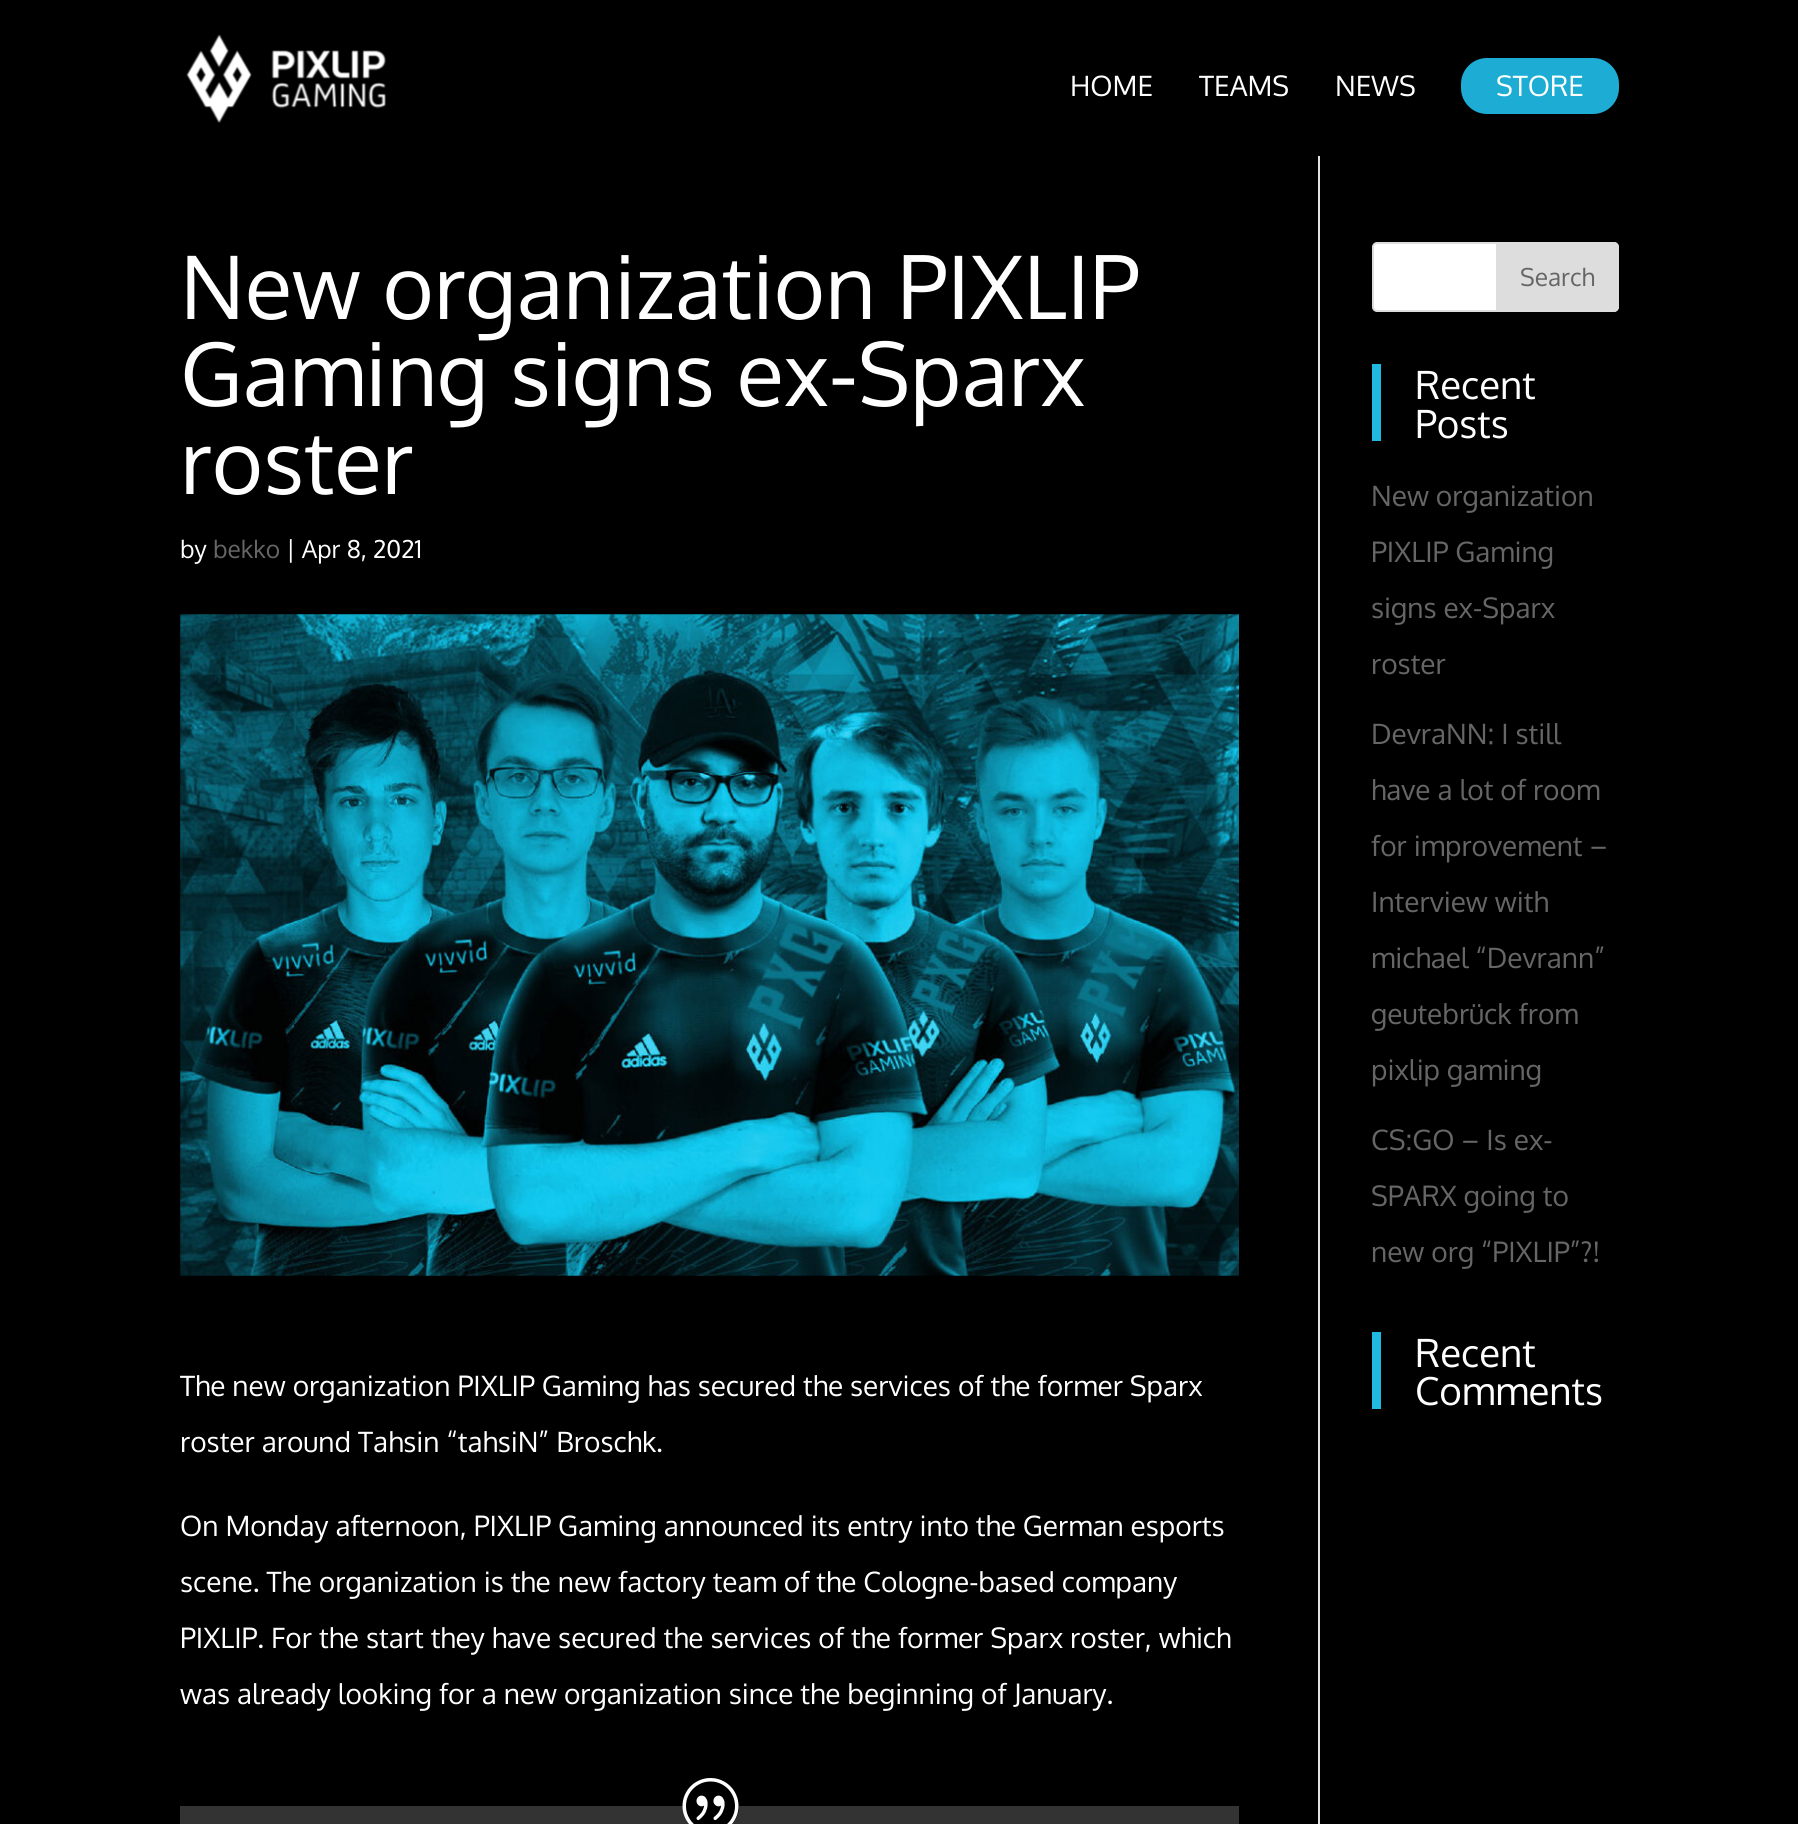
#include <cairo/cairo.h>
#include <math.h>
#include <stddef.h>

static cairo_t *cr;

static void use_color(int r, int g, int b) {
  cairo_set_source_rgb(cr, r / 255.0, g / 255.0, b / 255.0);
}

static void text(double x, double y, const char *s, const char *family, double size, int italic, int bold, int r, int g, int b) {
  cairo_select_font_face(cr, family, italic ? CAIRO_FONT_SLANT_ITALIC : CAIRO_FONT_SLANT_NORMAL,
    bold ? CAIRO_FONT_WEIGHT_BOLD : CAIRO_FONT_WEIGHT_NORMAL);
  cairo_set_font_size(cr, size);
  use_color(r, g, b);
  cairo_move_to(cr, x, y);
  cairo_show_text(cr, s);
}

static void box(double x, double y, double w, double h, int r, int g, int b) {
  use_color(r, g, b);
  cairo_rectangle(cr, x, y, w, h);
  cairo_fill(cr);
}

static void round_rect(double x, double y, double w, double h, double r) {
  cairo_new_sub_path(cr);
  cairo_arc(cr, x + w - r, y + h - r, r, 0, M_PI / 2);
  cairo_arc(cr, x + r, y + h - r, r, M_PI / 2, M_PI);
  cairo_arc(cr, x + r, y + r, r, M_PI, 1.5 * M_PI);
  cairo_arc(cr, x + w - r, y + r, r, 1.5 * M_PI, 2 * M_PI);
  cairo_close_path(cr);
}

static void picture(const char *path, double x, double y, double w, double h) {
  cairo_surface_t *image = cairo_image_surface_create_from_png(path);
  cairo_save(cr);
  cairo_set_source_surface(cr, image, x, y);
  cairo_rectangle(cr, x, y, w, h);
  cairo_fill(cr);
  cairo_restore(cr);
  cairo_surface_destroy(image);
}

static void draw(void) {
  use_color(0, 0, 0);
  cairo_paint(cr);
  picture("img_01.png", 186, 34, 200, 89);
  use_color(28, 172, 212);
  round_rect(1461, 58, 158, 56, 26);
  cairo_fill(cr);
  box(1318, 156, 2, 1668, 226, 226, 226);
  picture("img_02.png", 180, 614, 1059, 662);
  box(180, 1806, 1059, 18, 51, 51, 51);
  use_color(0, 0, 0);
  cairo_arc(cr, 711, 1806, 28, 0, 2 * M_PI);
  cairo_fill(cr);
  picture("img_03.png", 682, 1778, 57, 46);
  use_color(255, 255, 255);
  round_rect(1373, 243, 245, 68, 4);
  cairo_fill_preserve(cr);
  use_color(221, 221, 221);
  cairo_stroke(cr);
  cairo_new_path(cr);
  cairo_move_to(cr, 1497, 243);
  cairo_line_to(cr, 1614, 243);
  cairo_curve_to(cr, 1616, 243, 1618, 245, 1618, 247);
  cairo_line_to(cr, 1618, 307);
  cairo_curve_to(cr, 1618, 309, 1616, 311, 1614, 311);
  cairo_line_to(cr, 1497, 311);
  cairo_close_path(cr);
  cairo_fill_preserve(cr);
  cairo_stroke(cr);
  box(1372, 364, 9, 77, 31, 185, 226);
  box(1372, 1332, 9, 77, 31, 185, 226);
  text(1070, 96, "HOME", "Oxygen", 28, 0, 0, 255, 255, 255);
  text(1199, 96, "TEAMS", "Oxygen", 28, 0, 0, 255, 255, 255);
  text(1335, 96, "NEWS", "Oxygen", 28, 0, 0, 255, 255, 255);
  text(1496, 96, "STORE", "Oxygen", 28, 0, 0, 255, 255, 255);
  text(180, 319, "New organization PIXLIP", "Oxygen", 87.5, 0, 0, 255, 255, 255);
  text(180, 406, "Gaming signs ex-Sparx", "Oxygen", 87.5, 0, 0, 255, 255, 255);
  text(180, 494, "roster", "Oxygen", 87.5, 0, 0, 255, 255, 255);
  text(180, 558, "by", "Oxygen", 24.5, 0, 0, 255, 255, 255);
  text(213, 558, "bekko", "Oxygen", 24.5, 0, 0, 102, 102, 102);
  text(286, 558, "| Apr 8, 2021", "Oxygen", 24.5, 0, 0, 255, 255, 255);
  text(180, 1396, "The new organization PIXLIP Gaming has secured the services of the former Sparx", "Oxygen", 28, 0, 0, 255, 255, 255);
  text(180, 1452, "roster around Tahsin “tahsiN” Broschk.", "Oxygen", 28, 0, 0, 255, 255, 255);
  text(180, 1536, "On Monday afternoon, PIXLIP Gaming announced its entry into the German esports", "Oxygen", 28, 0, 0, 255, 255, 255);
  text(180, 1592, "scene. The organization is the new factory team of the Cologne-based company", "Oxygen", 28, 0, 0, 255, 255, 255);
  text(180, 1648, "PIXLIP. For the start they have secured the services of the former Sparx roster, which", "Oxygen", 28, 0, 0, 255, 255, 255);
  text(180, 1704, "was already looking for a new organization since the beginning of January.", "Oxygen", 28, 0, 0, 255, 255, 255);
  text(1520, 286, "Search", "Oxygen", 24.5, 0, 0, 102, 102, 102);
  text(1415, 399, "Recent", "Oxygen", 38.5, 0, 0, 255, 255, 255);
  text(1415, 438, "Posts", "Oxygen", 38.5, 0, 0, 255, 255, 255);
  text(1371, 506, "New organization", "Oxygen", 28, 0, 0, 102, 102, 102);
  text(1371, 562, "PIXLIP Gaming", "Oxygen", 28, 0, 0, 102, 102, 102);
  text(1371, 618, "signs ex-Sparx", "Oxygen", 28, 0, 0, 102, 102, 102);
  text(1371, 674, "roster", "Oxygen", 28, 0, 0, 102, 102, 102);
  text(1371, 744, "DevraNN: I still", "Oxygen", 28, 0, 0, 102, 102, 102);
  text(1371, 800, "have a lot of room", "Oxygen", 28, 0, 0, 102, 102, 102);
  text(1371, 856, "for improvement –", "Oxygen", 28, 0, 0, 102, 102, 102);
  text(1371, 912, "Interview with", "Oxygen", 28, 0, 0, 102, 102, 102);
  text(1371, 968, "michael “Devrann”", "Oxygen", 28, 0, 0, 102, 102, 102);
  text(1371, 1024, "geutebrück from", "Oxygen", 28, 0, 0, 102, 102, 102);
  text(1371, 1080, "pixlip gaming", "Oxygen", 28, 0, 0, 102, 102, 102);
  text(1371, 1150, "CS:GO – Is ex-", "Oxygen", 28, 0, 0, 102, 102, 102);
  text(1371, 1206, "SPARX going to", "Oxygen", 28, 0, 0, 102, 102, 102);
  text(1371, 1262, "new org “PIXLIP”?!", "Oxygen", 28, 0, 0, 102, 102, 102);
  text(1415, 1367, "Recent", "Oxygen", 38.5, 0, 0, 255, 255, 255);
  text(1415, 1405, "Comments", "Oxygen", 38.5, 0, 0, 255, 255, 255);
}

int main(void) {
  cairo_surface_t *surface = cairo_image_surface_create(CAIRO_FORMAT_RGB24, 1798, 1824);
  cr = cairo_create(surface);
  cairo_font_options_t *options = cairo_font_options_create();
  cairo_font_options_set_hint_metrics(options, CAIRO_HINT_METRICS_OFF);
  cairo_font_options_set_hint_style(options, CAIRO_HINT_STYLE_NONE);
  cairo_set_font_options(cr, options);
  cairo_set_miter_limit(cr, 4);
  draw();
  cairo_surface_write_to_png(surface, "out.png");
  cairo_font_options_destroy(options);
  cairo_destroy(cr);
  cairo_surface_destroy(surface);
  return 0;
}
